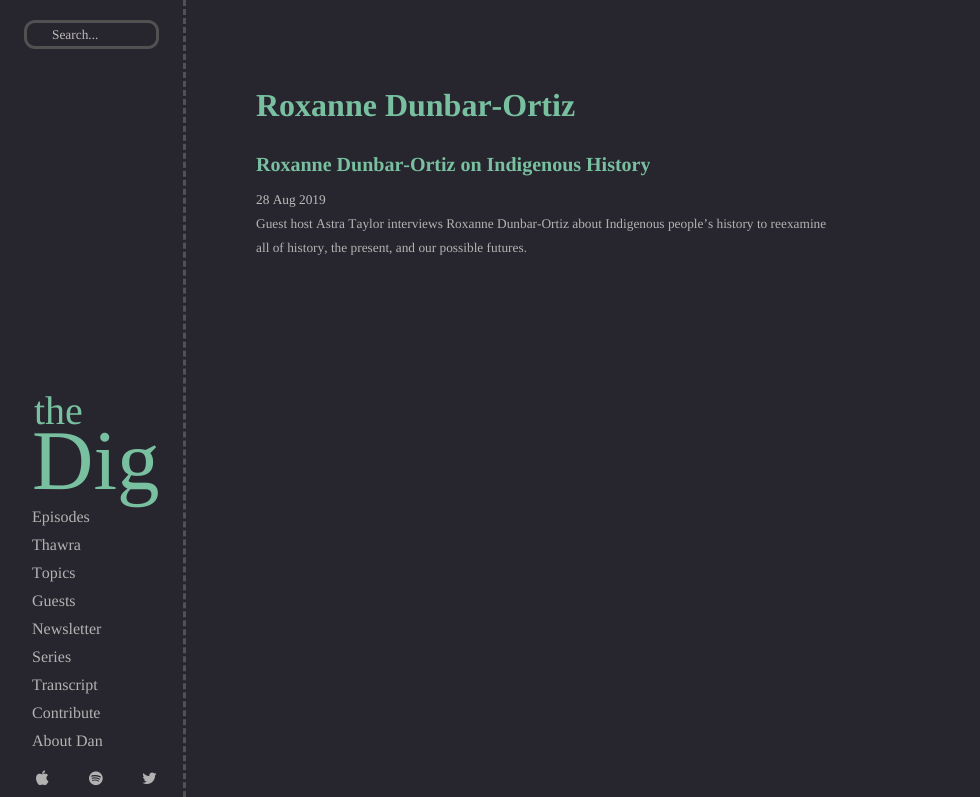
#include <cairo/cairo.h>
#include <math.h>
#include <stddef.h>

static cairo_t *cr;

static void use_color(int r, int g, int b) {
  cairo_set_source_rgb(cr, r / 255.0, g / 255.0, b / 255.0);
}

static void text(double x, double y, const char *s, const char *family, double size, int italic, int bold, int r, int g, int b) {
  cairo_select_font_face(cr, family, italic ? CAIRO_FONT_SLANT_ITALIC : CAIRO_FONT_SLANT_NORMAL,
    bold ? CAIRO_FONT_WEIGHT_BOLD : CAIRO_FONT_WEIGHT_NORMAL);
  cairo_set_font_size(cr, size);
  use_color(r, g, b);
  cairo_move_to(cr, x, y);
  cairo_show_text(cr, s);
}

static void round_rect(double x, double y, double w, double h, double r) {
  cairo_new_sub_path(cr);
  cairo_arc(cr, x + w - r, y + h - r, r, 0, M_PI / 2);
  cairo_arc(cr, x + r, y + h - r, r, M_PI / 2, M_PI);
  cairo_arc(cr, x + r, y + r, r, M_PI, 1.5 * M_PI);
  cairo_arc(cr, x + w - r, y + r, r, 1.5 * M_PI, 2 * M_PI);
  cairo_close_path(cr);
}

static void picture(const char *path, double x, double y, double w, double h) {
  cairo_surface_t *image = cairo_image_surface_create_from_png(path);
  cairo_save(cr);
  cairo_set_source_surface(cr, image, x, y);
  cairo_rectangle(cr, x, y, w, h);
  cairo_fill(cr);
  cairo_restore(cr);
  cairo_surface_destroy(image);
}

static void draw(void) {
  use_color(39, 38, 46);
  cairo_paint(cr);
  cairo_new_path(cr);
  cairo_move_to(cr, 184.5, 0);
  cairo_line_to(cr, 184.5, 797);
  use_color(81, 81, 81);
  cairo_set_line_width(cr, 3);
  cairo_set_dash(cr, (double[]){6, 2.99}, 2, 0);
  cairo_stroke(cr);
  round_rect(25.5, 21.5, 132, 26, 9.5);
  cairo_set_dash(cr, NULL, 0, 0);
  cairo_stroke(cr);
  picture("img_01.png", 36, 770, 13, 16);
  picture("img_02.png", 89, 771, 14, 15);
  picture("img_03.png", 142, 772, 15, 12);
  text(52, 39, "Search...", "Liberation Serif", 13.35, 0, 0, 190, 187, 187);
  text(34, 424, "the", "Liberation Serif", 40, 0, 0, 120, 192, 160);
  text(32, 489, "Dig", "Liberation Serif", 85, 0, 0, 120, 192, 160);
  text(32, 522, "Episodes", "Liberation Serif", 16, 0, 0, 178, 178, 178);
  text(32, 550, "Thawra", "Liberation Serif", 16, 0, 0, 178, 178, 178);
  text(32, 578, "Topics", "Liberation Serif", 16, 0, 0, 178, 178, 178);
  text(32, 606, "Guests", "Liberation Serif", 16, 0, 0, 178, 178, 178);
  text(32, 634, "Newsletter", "Liberation Serif", 16, 0, 0, 178, 178, 178);
  text(32, 662, "Series", "Liberation Serif", 16, 0, 0, 178, 178, 178);
  text(32, 690, "Transcript", "Liberation Serif", 16, 0, 0, 178, 178, 178);
  text(32, 718, "Contribute", "Liberation Serif", 16, 0, 0, 178, 178, 178);
  text(32, 746, "About Dan", "Liberation Serif", 16, 0, 0, 178, 178, 178);
  text(256, 116, "Roxanne Dunbar-Ortiz", "Liberation Serif", 32, 0, 1, 120, 192, 160);
  text(256, 171, "Roxanne Dunbar-Ortiz on Indigenous History", "Liberation Serif", 20, 0, 1, 120, 192, 160);
  text(256, 204, "28 Aug 2019", "Liberation Serif", 13.35, 0, 0, 190, 187, 187);
  text(256, 228, "Guest host Astra Taylor interviews Roxanne Dunbar-Ortiz about Indigenous people’s history to reexamine", "Liberation Serif", 13.35, 0, 0, 178, 178, 178);
  text(256, 252, "all of history, the present, and our possible futures.", "Liberation Serif", 13.35, 0, 0, 178, 178, 178);
}

int main(void) {
  cairo_surface_t *surface = cairo_image_surface_create(CAIRO_FORMAT_RGB24, 980, 797);
  cr = cairo_create(surface);
  cairo_font_options_t *options = cairo_font_options_create();
  cairo_font_options_set_hint_metrics(options, CAIRO_HINT_METRICS_OFF);
  cairo_font_options_set_hint_style(options, CAIRO_HINT_STYLE_NONE);
  cairo_set_font_options(cr, options);
  cairo_set_miter_limit(cr, 4);
  draw();
  cairo_surface_write_to_png(surface, "out.png");
  cairo_font_options_destroy(options);
  cairo_destroy(cr);
  cairo_surface_destroy(surface);
  return 0;
}
